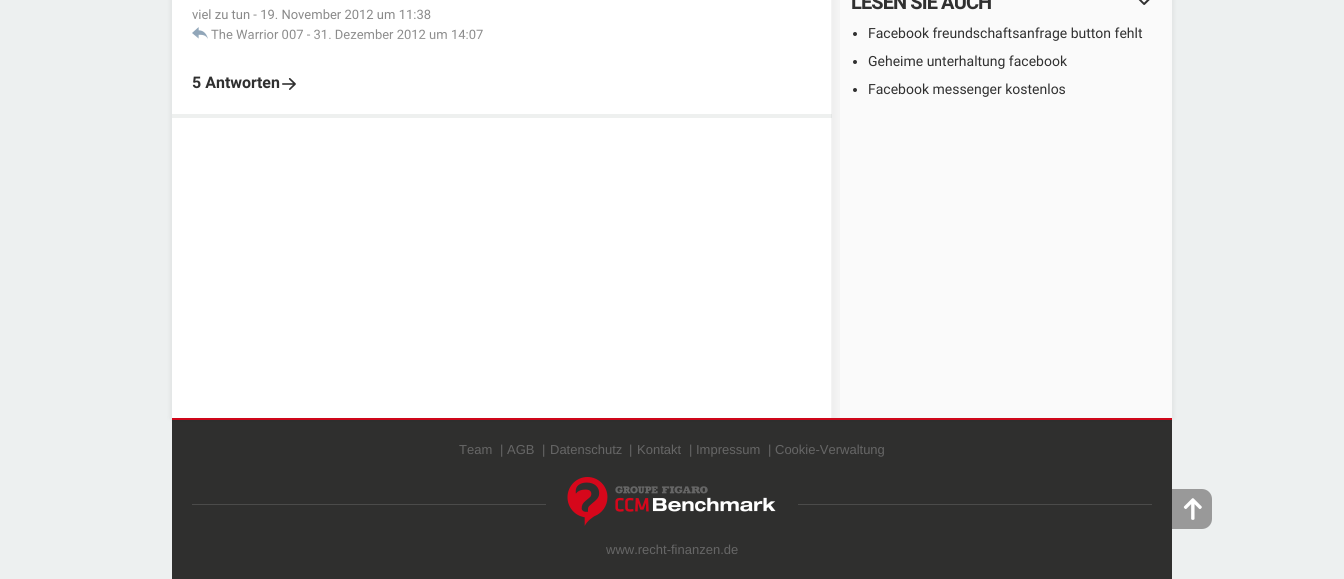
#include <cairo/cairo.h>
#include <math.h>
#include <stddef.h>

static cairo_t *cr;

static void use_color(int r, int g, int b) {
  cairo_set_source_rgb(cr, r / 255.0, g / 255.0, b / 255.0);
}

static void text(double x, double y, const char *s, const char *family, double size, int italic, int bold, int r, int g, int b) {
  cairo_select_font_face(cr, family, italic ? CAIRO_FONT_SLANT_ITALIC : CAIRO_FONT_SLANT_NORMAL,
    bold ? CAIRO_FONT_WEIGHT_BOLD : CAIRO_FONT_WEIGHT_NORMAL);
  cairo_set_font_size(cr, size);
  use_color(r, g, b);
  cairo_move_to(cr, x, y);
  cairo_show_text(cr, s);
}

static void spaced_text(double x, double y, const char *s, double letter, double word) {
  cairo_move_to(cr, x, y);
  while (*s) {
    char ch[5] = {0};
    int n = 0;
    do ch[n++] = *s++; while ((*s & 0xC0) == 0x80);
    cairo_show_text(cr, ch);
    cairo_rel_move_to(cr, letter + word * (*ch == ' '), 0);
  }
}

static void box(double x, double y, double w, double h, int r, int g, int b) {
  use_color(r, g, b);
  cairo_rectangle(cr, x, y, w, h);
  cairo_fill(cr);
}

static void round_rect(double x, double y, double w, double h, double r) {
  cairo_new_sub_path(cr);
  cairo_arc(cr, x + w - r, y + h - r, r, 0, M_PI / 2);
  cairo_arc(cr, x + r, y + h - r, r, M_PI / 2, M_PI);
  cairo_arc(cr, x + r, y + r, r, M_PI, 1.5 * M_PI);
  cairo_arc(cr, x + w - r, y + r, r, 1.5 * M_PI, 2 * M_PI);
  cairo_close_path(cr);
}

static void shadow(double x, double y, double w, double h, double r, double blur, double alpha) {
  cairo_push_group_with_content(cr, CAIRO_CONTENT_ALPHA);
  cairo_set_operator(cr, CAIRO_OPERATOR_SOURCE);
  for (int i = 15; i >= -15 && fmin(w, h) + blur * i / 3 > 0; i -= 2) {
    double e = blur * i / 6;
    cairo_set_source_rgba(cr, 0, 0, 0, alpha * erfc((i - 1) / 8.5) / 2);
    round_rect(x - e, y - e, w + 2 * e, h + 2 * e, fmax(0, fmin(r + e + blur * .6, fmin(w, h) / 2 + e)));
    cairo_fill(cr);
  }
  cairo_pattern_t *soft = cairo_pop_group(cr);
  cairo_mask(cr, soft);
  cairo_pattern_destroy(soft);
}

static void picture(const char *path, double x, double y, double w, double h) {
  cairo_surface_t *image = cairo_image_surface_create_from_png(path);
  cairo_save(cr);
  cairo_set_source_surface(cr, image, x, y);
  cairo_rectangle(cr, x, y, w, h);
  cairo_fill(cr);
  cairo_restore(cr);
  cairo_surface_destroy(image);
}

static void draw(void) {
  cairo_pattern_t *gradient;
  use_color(237, 240, 240);
  cairo_paint(cr);
  box(172, 420, 1000, 159, 47, 47, 46);
  box(172, 418, 1000, 2, 214, 7, 27);
  use_color(0, 0, 0);
  shadow(172, -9, 1000, 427, 0, 3, 0.1);
  box(172, 0, 660, 418, 255, 255, 255);
  box(172, 114, 660, 4, 238, 240, 239);
  picture("img_01.png", 192, 27, 16, 12);
  picture("img_02.png", 282, 78, 14, 12);
  box(832, 0, 340, 418, 250, 250, 250);
  gradient = cairo_pattern_create_linear(831, -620, 846, -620);
  cairo_pattern_add_color_stop_rgba(gradient, 0, 0, 0, 0, 0.05);
  cairo_pattern_add_color_stop_rgba(gradient, 1, 0, 0, 0, 0);
  cairo_set_source(cr, gradient);
  cairo_pattern_destroy(gradient);
  cairo_rectangle(cr, 831, 0, 9, 418);
  cairo_fill(cr);
  picture("img_03.png", 1138, 0, 12, 5);
  use_color(48, 48, 48);
  cairo_arc(cr, 855, 34, 2, 0, 2 * M_PI);
  cairo_fill(cr);
  cairo_arc(cr, 855, 62, 2, 0, 2 * M_PI);
  cairo_fill(cr);
  cairo_arc(cr, 855, 90, 2, 0, 2 * M_PI);
  cairo_fill(cr);
  use_color(153, 153, 153);
  cairo_new_path(cr);
  cairo_move_to(cr, 1172, 489);
  cairo_line_to(cr, 1202, 489);
  cairo_curve_to(cr, 1207.5, 489, 1212, 493.5, 1212, 499);
  cairo_line_to(cr, 1212, 519);
  cairo_curve_to(cr, 1212, 524.5, 1207.5, 529, 1202, 529);
  cairo_line_to(cr, 1172, 529);
  cairo_close_path(cr);
  cairo_fill(cr);
  picture("img_04.png", 1183, 498, 19, 22);
  box(192, 504, 960, 1, 75, 75, 74);
  box(546, 504, 252, 1, 47, 47, 46);
  picture("img_05.png", 567, 477, 209, 49);
  text(192, 19, "viel zu tun - 19. November 2012 um 11:38", "Roboto", 13, 0, 0, 137, 137, 137);
  text(211, 39, "The Warrior 007 - 31. Dezember 2012 um 14:07", "Roboto", 13, 0, 0, 137, 137, 137);
  gradient = cairo_pattern_create_linear(502, 34, 502, 114);
  cairo_pattern_add_color_stop_rgba(gradient, 0, 1, 1, 1, 0);
  cairo_pattern_add_color_stop_rgba(gradient, 0.45, 1, 1, 1, 1);
  cairo_set_source(cr, gradient);
  cairo_pattern_destroy(gradient);
  cairo_rectangle(cr, 195, 35, 286, 4);
  cairo_fill(cr);
  text(192, 88, "5 Antworten", "Roboto", 16, 0, 1, 48, 48, 48);
  cairo_set_font_size(cr, 20);
  spaced_text(851, 9, "LESEN SIE AUCH", -0.9, 0);
  text(868, 38, "Facebook freundschaftsanfrage button fehlt", "Roboto", 14, 0, 0, 48, 48, 48);
  text(868, 66, "Geheime unterhaltung facebook", "Roboto", 14, 0, 0, 48, 48, 48);
  text(868, 94, "Facebook messenger kostenlos", "Roboto", 14, 0, 0, 48, 48, 48);
  text(459, 454, "Team", "Liberation Sans", 13, 0, 0, 102, 102, 102);
  text(500, 454, "|", "Liberation Sans", 13, 0, 0, 102, 102, 102);
  text(507, 454, "AGB", "Liberation Sans", 13, 0, 0, 102, 102, 102);
  text(542, 454, "|", "Liberation Sans", 13, 0, 0, 102, 102, 102);
  text(550, 454, "Datenschutz", "Liberation Sans", 13, 0, 0, 102, 102, 102);
  text(629, 454, "|", "Liberation Sans", 13, 0, 0, 102, 102, 102);
  text(637, 454, "Kontakt", "Liberation Sans", 13, 0, 0, 102, 102, 102);
  text(689, 454, "|", "Liberation Sans", 13, 0, 0, 102, 102, 102);
  text(696, 454, "Impressum", "Liberation Sans", 13, 0, 0, 102, 102, 102);
  text(768, 454, "|", "Liberation Sans", 13, 0, 0, 102, 102, 102);
  text(775, 454, "Cookie-Verwaltung", "Liberation Sans", 13, 0, 0, 102, 102, 102);
  text(606, 554, "www.recht-finanzen.de", "Liberation Sans", 13, 0, 0, 102, 102, 102);
}

int main(void) {
  cairo_surface_t *surface = cairo_image_surface_create(CAIRO_FORMAT_RGB24, 1344, 579);
  cr = cairo_create(surface);
  cairo_font_options_t *options = cairo_font_options_create();
  cairo_font_options_set_hint_metrics(options, CAIRO_HINT_METRICS_OFF);
  cairo_font_options_set_hint_style(options, CAIRO_HINT_STYLE_NONE);
  cairo_set_font_options(cr, options);
  cairo_set_miter_limit(cr, 4);
  draw();
  cairo_surface_write_to_png(surface, "out.png");
  cairo_font_options_destroy(options);
  cairo_destroy(cr);
  cairo_surface_destroy(surface);
  return 0;
}
